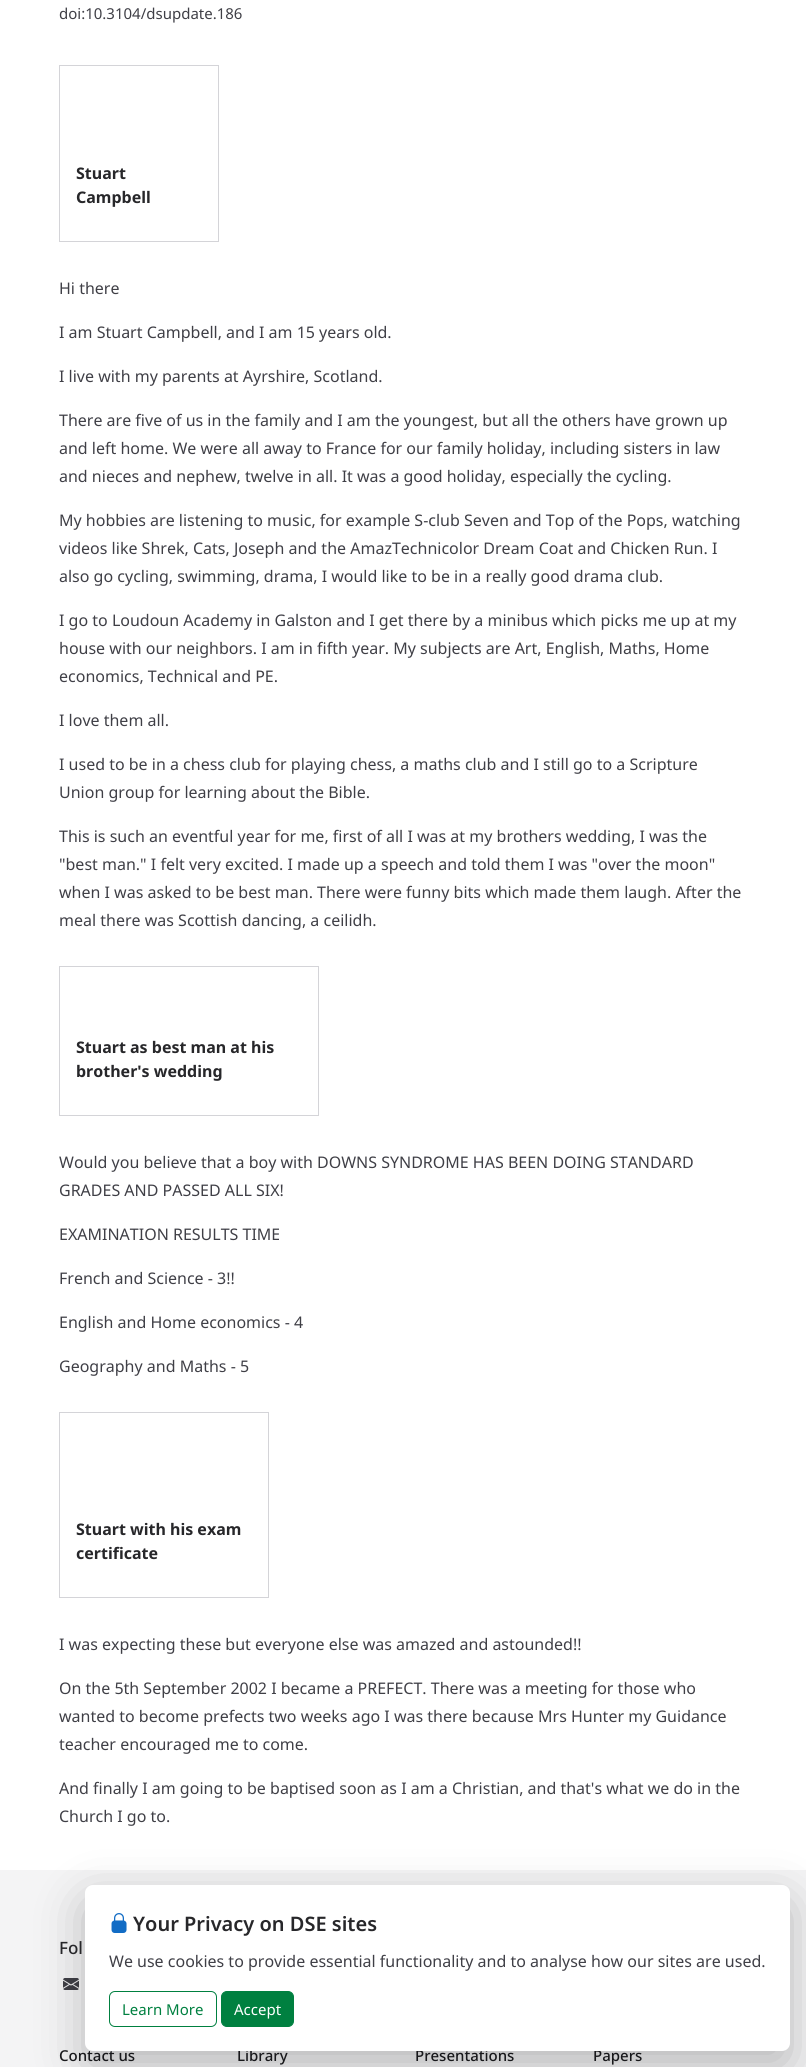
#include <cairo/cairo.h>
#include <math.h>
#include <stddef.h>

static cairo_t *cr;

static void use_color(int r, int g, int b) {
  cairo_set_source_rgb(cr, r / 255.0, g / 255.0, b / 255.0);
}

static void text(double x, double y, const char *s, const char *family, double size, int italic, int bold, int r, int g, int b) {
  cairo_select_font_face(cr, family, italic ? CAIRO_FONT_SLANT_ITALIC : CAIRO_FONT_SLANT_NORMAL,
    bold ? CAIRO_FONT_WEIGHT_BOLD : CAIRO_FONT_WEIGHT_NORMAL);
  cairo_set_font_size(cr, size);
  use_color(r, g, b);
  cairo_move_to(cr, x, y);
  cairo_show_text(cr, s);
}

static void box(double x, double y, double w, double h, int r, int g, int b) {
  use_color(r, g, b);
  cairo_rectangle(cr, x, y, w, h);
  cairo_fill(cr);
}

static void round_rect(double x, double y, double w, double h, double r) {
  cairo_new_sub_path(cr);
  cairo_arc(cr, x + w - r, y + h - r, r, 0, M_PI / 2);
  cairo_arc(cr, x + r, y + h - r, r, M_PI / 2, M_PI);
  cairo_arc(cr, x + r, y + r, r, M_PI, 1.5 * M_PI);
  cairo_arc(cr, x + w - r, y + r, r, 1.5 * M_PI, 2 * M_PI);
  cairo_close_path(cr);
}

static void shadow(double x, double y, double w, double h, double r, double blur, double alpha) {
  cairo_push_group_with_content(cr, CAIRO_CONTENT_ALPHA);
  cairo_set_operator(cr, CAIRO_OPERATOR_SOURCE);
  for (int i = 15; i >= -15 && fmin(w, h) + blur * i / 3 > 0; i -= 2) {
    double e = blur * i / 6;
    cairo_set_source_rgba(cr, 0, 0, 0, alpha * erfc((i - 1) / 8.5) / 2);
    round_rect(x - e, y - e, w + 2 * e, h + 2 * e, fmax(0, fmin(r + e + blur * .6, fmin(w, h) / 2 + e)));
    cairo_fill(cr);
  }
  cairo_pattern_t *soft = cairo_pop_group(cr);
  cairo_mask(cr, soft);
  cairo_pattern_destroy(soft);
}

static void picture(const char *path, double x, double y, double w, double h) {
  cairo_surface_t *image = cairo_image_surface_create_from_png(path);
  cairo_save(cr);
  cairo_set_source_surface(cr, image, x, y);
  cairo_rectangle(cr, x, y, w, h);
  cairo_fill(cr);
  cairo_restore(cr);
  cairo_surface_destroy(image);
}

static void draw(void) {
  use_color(255, 255, 255);
  cairo_paint(cr);
  cairo_rectangle(cr, 59.5, 65.5, 159, 176);
  use_color(212, 212, 216);
  cairo_set_line_width(cr, 1);
  cairo_stroke(cr);
  cairo_rectangle(cr, 59.5, 966.5, 259, 149);
  cairo_stroke(cr);
  cairo_rectangle(cr, 59.5, 1412.5, 209, 185);
  cairo_stroke(cr);
  box(0, 1870, 806, 197, 244, 244, 245);
  picture("img_02.png", 63, 1978, 16, 12);
  use_color(0, 0, 0);
  shadow(85, 1901, 705, 166, 8, 24, 0.25);
  text(59, 19, "doi:10.3104/dsupdate.186", "Noto Sans", 15, 0, 0, 63, 63, 70);
  text(76, 179, "Stuart", "Noto Sans", 16, 0, 1, 39, 39, 42);
  text(76, 203, "Campbell", "Noto Sans", 16, 0, 1, 39, 39, 42);
  text(59, 294, "Hi there", "Noto Sans", 16, 0, 0, 63, 63, 70);
  text(59, 338, "I am Stuart Campbell, and I am 15 years old.", "Noto Sans", 16, 0, 0, 63, 63, 70);
  text(59, 382, "I live with my parents at Ayrshire, Scotland.", "Noto Sans", 16, 0, 0, 63, 63, 70);
  text(59, 426, "There are five of us in the family and I am the youngest, but all the others have grown up", "Noto Sans", 16, 0, 0, 63, 63, 70);
  text(59, 454, "and left home. We were all away to France for our family holiday, including sisters in law", "Noto Sans", 16, 0, 0, 63, 63, 70);
  text(59, 482, "and nieces and nephew, twelve in all. It was a good holiday, especially the cycling.", "Noto Sans", 16, 0, 0, 63, 63, 70);
  text(59, 526, "My hobbies are listening to music, for example S-club Seven and Top of the Pops, watching", "Noto Sans", 16, 0, 0, 63, 63, 70);
  text(59, 554, "videos like Shrek, Cats, Joseph and the AmazTechnicolor Dream Coat and Chicken Run. I", "Noto Sans", 16, 0, 0, 63, 63, 70);
  text(59, 582, "also go cycling, swimming, drama, I would like to be in a really good drama club.", "Noto Sans", 16, 0, 0, 63, 63, 70);
  text(59, 626, "I go to Loudoun Academy in Galston and I get there by a minibus which picks me up at my", "Noto Sans", 16, 0, 0, 63, 63, 70);
  text(59, 654, "house with our neighbors. I am in fifth year. My subjects are Art, English, Maths, Home", "Noto Sans", 16, 0, 0, 63, 63, 70);
  text(59, 682, "economics, Technical and PE.", "Noto Sans", 16, 0, 0, 63, 63, 70);
  text(59, 726, "I love them all.", "Noto Sans", 16, 0, 0, 63, 63, 70);
  text(59, 770, "I used to be in a chess club for playing chess, a maths club and I still go to a Scripture", "Noto Sans", 16, 0, 0, 63, 63, 70);
  text(59, 798, "Union group for learning about the Bible.", "Noto Sans", 16, 0, 0, 63, 63, 70);
  text(59, 842, "This is such an eventful year for me, first of all I was at my brothers wedding, I was the", "Noto Sans", 16, 0, 0, 63, 63, 70);
  text(59, 870, "\"best man.\" I felt very excited. I made up a speech and told them I was \"over the moon\"", "Noto Sans", 16, 0, 0, 63, 63, 70);
  text(59, 898, "when I was asked to be best man. There were funny bits which made them laugh. After the", "Noto Sans", 16, 0, 0, 63, 63, 70);
  text(59, 926, "meal there was Scottish dancing, a ceilidh.", "Noto Sans", 16, 0, 0, 63, 63, 70);
  text(76, 1053, "Stuart as best man at his", "Noto Sans", 16, 0, 1, 39, 39, 42);
  text(76, 1077, "brother's wedding", "Noto Sans", 16, 0, 1, 39, 39, 42);
  text(59, 1168, "Would you believe that a boy with DOWNS SYNDROME HAS BEEN DOING STANDARD", "Noto Sans", 16, 0, 0, 63, 63, 70);
  text(59, 1196, "GRADES AND PASSED ALL SIX!", "Noto Sans", 16, 0, 0, 63, 63, 70);
  text(59, 1240, "EXAMINATION RESULTS TIME", "Noto Sans", 16, 0, 0, 63, 63, 70);
  text(59, 1284, "French and Science - 3!!", "Noto Sans", 16, 0, 0, 63, 63, 70);
  text(59, 1328, "English and Home economics - 4", "Noto Sans", 16, 0, 0, 63, 63, 70);
  text(59, 1372, "Geography and Maths - 5", "Noto Sans", 16, 0, 0, 63, 63, 70);
  text(76, 1535, "Stuart with his exam", "Noto Sans", 16, 0, 1, 39, 39, 42);
  text(76, 1559, "certificate", "Noto Sans", 16, 0, 1, 39, 39, 42);
  text(59, 1650, "I was expecting these but everyone else was amazed and astounded!!", "Noto Sans", 16, 0, 0, 63, 63, 70);
  text(59, 1694, "On the 5th September 2002 I became a PREFECT. There was a meeting for those who", "Noto Sans", 16, 0, 0, 63, 63, 70);
  text(59, 1722, "wanted to become prefects two weeks ago I was there because Mrs Hunter my Guidance", "Noto Sans", 16, 0, 0, 63, 63, 70);
  text(59, 1750, "teacher encouraged me to come.", "Noto Sans", 16, 0, 0, 63, 63, 70);
  text(59, 1794, "And finally I am going to be baptised soon as I am a Christian, and that's what we do in the", "Noto Sans", 16, 0, 0, 63, 63, 70);
  text(59, 1822, "Church I go to.", "Noto Sans", 16, 0, 0, 63, 63, 70);
  text(59, 1954, "Fol", "Noto Sans Medium", 17, 0, 0, 39, 39, 42);
  text(59, 2061, "Contact us", "Noto Sans Medium", 15, 0, 0, 24, 24, 27);
  text(237, 2061, "Library", "Noto Sans Medium", 15, 0, 0, 24, 24, 27);
  text(415, 2061, "Presentations", "Noto Sans Medium", 15, 0, 0, 24, 24, 27);
  text(593, 2061, "Papers", "Noto Sans Medium", 15, 0, 0, 24, 24, 27);
  use_color(255, 255, 255);
  round_rect(85, 1885, 705, 166, 8);
  cairo_fill(cr);
  use_color(0, 128, 64);
  round_rect(221.5, 1991.5, 72, 35, 5.5);
  cairo_fill_preserve(cr);
  cairo_stroke(cr);
  text(234, 2015, "Accept", "Noto Sans", 15, 0, 0, 255, 255, 255);
  round_rect(109.5, 1991.5, 107, 35, 5.5);
  use_color(0, 128, 64);
  cairo_stroke(cr);
  text(122, 2015, "Learn More", "Noto Sans", 15, 0, 0, 0, 128, 64);
  text(109, 1967, "We use cookies to provide essential functionality and to analyse how our sites are used.", "Noto Sans", 16, 0, 0, 63, 63, 70);
  text(133, 1931, "Your Privacy on DSE sites", "Noto Sans SemiBold", 20, 0, 0, 39, 39, 42);
  picture("img_01.png", 111, 1913, 16, 20);
}

int main(void) {
  cairo_surface_t *surface = cairo_image_surface_create(CAIRO_FORMAT_RGB24, 806, 2067);
  cr = cairo_create(surface);
  cairo_font_options_t *options = cairo_font_options_create();
  cairo_font_options_set_hint_metrics(options, CAIRO_HINT_METRICS_OFF);
  cairo_font_options_set_hint_style(options, CAIRO_HINT_STYLE_NONE);
  cairo_set_font_options(cr, options);
  cairo_set_miter_limit(cr, 4);
  draw();
  cairo_surface_write_to_png(surface, "out.png");
  cairo_font_options_destroy(options);
  cairo_destroy(cr);
  cairo_surface_destroy(surface);
  return 0;
}
